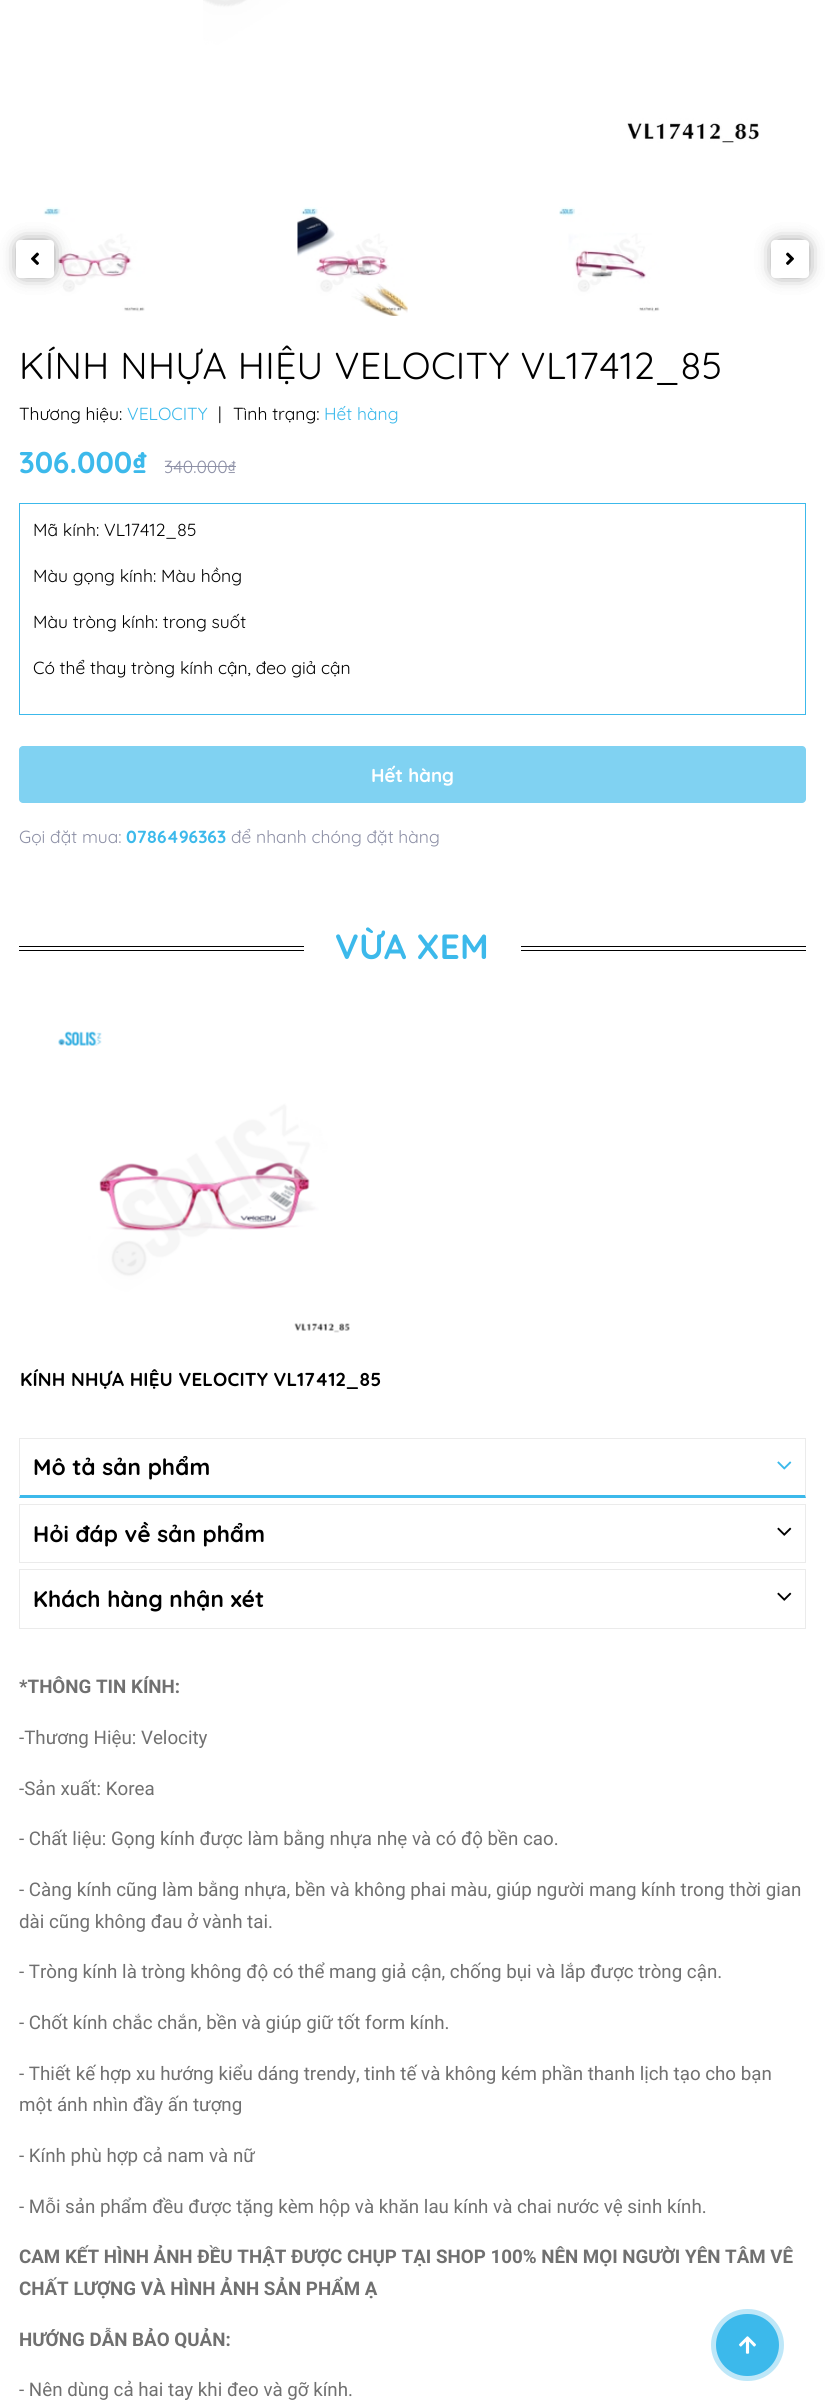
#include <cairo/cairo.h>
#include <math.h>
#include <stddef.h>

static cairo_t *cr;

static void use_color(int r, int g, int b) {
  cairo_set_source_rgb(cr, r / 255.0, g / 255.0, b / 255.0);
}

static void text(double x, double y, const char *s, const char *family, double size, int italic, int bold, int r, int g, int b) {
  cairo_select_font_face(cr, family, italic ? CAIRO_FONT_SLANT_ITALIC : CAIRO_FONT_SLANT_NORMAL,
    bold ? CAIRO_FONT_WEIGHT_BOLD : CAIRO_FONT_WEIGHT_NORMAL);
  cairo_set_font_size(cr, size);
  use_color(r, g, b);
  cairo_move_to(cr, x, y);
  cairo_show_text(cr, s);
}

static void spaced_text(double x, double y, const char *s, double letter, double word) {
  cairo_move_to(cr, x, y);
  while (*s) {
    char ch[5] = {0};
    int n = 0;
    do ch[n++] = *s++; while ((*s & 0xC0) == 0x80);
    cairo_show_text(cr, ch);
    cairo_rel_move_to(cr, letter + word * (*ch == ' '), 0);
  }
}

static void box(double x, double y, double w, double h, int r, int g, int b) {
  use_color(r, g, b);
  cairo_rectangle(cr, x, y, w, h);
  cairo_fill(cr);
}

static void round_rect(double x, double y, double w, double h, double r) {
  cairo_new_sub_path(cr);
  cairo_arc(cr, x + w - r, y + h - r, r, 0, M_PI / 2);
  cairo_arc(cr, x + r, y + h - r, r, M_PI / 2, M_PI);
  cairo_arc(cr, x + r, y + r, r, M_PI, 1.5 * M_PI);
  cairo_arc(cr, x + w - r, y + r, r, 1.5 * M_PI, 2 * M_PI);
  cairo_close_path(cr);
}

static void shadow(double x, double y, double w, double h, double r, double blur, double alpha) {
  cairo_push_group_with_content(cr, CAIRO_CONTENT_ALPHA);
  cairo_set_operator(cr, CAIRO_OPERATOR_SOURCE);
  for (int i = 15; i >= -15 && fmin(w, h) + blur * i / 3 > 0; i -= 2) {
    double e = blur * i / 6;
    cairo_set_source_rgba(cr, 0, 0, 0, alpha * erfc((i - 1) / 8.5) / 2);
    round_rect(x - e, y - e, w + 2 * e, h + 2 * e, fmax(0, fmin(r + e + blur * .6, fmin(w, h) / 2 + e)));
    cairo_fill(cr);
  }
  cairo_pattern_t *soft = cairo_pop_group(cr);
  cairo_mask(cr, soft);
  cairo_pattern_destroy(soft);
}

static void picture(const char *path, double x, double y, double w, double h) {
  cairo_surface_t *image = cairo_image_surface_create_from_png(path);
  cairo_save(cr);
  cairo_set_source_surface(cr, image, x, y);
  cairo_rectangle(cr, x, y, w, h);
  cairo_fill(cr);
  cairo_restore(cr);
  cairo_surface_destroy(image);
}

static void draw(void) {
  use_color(255, 255, 255);
  cairo_paint(cr);
  picture("img_01.png", 203, 0, 556, 143);
  picture("img_02.png", 43, 207, 102, 105);
  picture("img_03.png", 297, 207, 111, 109);
  picture("img_04.png", 559, 207, 101, 105);
  use_color(0, 0, 0);
  shadow(23, 246, 25, 25, 0, 9.5, 0.4);
  shadow(23, 246, 25, 25, 0, 9.5, 0.4);
  use_color(255, 255, 255);
  round_rect(16, 240, 38, 38, 4);
  cairo_fill(cr);
  picture("img_05.png", 31, 252, 8, 13);
  use_color(0, 0, 0);
  shadow(778, 246, 25, 25, 0, 9.5, 0.4);
  shadow(778, 246, 25, 25, 0, 9.5, 0.4);
  use_color(255, 255, 255);
  round_rect(771, 240, 38, 38, 4);
  cairo_fill(cr);
  picture("img_06.png", 786, 252, 8, 13);
  box(165, 466, 71, 1, 141, 144, 166);
  cairo_rectangle(cr, 19.5, 503.5, 786, 211);
  use_color(60, 185, 235);
  cairo_set_line_width(cr, 1);
  cairo_stroke(cr);
  use_color(128, 210, 242);
  round_rect(19, 746, 787, 57, 4);
  cairo_fill(cr);
  box(19, 946, 787, 1, 0, 0, 0);
  box(19, 950, 787, 1, 0, 0, 0);
  box(304, 946, 217, 5, 255, 255, 255);
  picture("img_07.png", 58, 1031, 292, 302);
  box(19, 1438, 787, 1, 235, 235, 235);
  cairo_new_path(cr);
  cairo_move_to(cr, 806, 1438);
  cairo_line_to(cr, 806, 1498);
  cairo_line_to(cr, 805, 1495);
  cairo_line_to(cr, 805, 1439);
  cairo_close_path(cr);
  cairo_fill(cr);
  use_color(60, 185, 235);
  cairo_new_path(cr);
  cairo_move_to(cr, 806, 1498);
  cairo_line_to(cr, 19, 1498);
  cairo_line_to(cr, 20, 1495);
  cairo_line_to(cr, 805, 1495);
  cairo_close_path(cr);
  cairo_fill(cr);
  use_color(235, 235, 235);
  cairo_new_path(cr);
  cairo_move_to(cr, 19, 1498);
  cairo_line_to(cr, 19, 1438);
  cairo_line_to(cr, 20, 1439);
  cairo_line_to(cr, 20, 1495);
  cairo_close_path(cr);
  cairo_fill(cr);
  picture("img_08.png", 777, 1461, 15, 9);
  cairo_rectangle(cr, 19.5, 1504.5, 786, 58);
  cairo_stroke(cr);
  picture("img_09.png", 777, 1527, 15, 9);
  cairo_rectangle(cr, 19.5, 1569.5, 786, 59);
  cairo_stroke(cr);
  picture("img_09.png", 777, 1592, 15, 9);
  use_color(190, 231, 248);
  round_rect(711, 2309, 73, 72, 36);
  cairo_fill(cr);
  use_color(60, 185, 235);
  round_rect(716, 2314, 63, 62, 31);
  cairo_fill(cr);
  picture("img_10.png", 739, 2336, 17, 18);
  cairo_select_font_face(cr, "Quicksand", CAIRO_FONT_SLANT_NORMAL, CAIRO_FONT_WEIGHT_NORMAL);
  cairo_set_font_size(cr, 37.5);
  use_color(0, 0, 0);
  spaced_text(19, 379, "KÍNH NHỰA HIỆU VELOCITY VL17412_85", 0.4, 0);
  text(19, 420, "Thương hiệu:", "Quicksand", 17.5, 0, 0, 0, 0, 0);
  text(127, 420, "VELOCITY", "Quicksand", 17.5, 0, 0, 60, 185, 235);
  text(218, 420, "|", "Quicksand", 17.5, 0, 0, 0, 0, 0);
  text(233, 420, "Tình trạng:", "Quicksand", 17.5, 0, 0, 0, 0, 0);
  text(324, 420, "Hết hàng", "Quicksand", 17.5, 0, 0, 60, 185, 235);
  text(19, 473, "306.000₫", "Quicksand", 30, 0, 1, 60, 185, 235);
  text(164, 473, "340.000₫", "Quicksand", 17.5, 0, 0, 141, 144, 166);
  text(33, 536, "Mã kính: VL17412_85", "Quicksand", 17.5, 0, 0, 0, 0, 0);
  text(33, 582, "Màu gọng kính: Màu hồng", "Quicksand", 17.5, 0, 0, 0, 0, 0);
  text(33, 628, "Màu tròng kính: trong suốt", "Quicksand", 17.5, 0, 0, 0, 0, 0);
  text(33, 674, "Có thể thay tròng kính cận, đeo giả cận", "Quicksand", 17.5, 0, 0, 0, 0, 0);
  text(371, 782, "Hết hàng", "Quicksand", 18.75, 0, 1, 255, 255, 255);
  text(19, 843, "Gọi đặt mua:", "Quicksand", 17.5, 0, 0, 141, 144, 166);
  text(126, 843, "0786496363", "Quicksand", 17.5, 0, 1, 60, 185, 235);
  text(231, 843, "để nhanh chóng đặt hàng", "Quicksand", 17.5, 0, 0, 141, 144, 166);
  cairo_select_font_face(cr, "Quicksand", CAIRO_FONT_SLANT_NORMAL, CAIRO_FONT_WEIGHT_BOLD);
  cairo_set_font_size(cr, 35);
  use_color(60, 185, 235);
  spaced_text(335, 959, "VỪA XEM", 0.25, 0);
  cairo_set_font_size(cr, 18.75);
  use_color(0, 0, 0);
  spaced_text(20, 1386, "KÍNH NHỰA HIỆU VELOCITY VL17412_85", 0.2, 0);
  cairo_set_font_size(cr, 22.5);
  spaced_text(33, 1475, "Mô tả sản phẩm", 0.2, 0);
  spaced_text(33, 1542, "Hỏi đáp về sản phẩm", 0.2, 0);
  spaced_text(33, 1607, "Khách hàng nhận xét", 0.2, 0);
  text(19, 1693, "*THÔNG TIN KÍNH:", "Roboto", 18.75, 0, 1, 112, 112, 112);
  text(19, 1744, "-Thương Hiệu: Velocity", "Roboto", 18.75, 0, 0, 112, 112, 112);
  text(19, 1795, "-Sản xuất: Korea", "Roboto", 18.75, 0, 0, 112, 112, 112);
  text(19, 1845, "- Chất liệu: Gọng kính được làm bằng nhựa nhẹ và có độ bền cao.", "Roboto", 18.75, 0, 0, 112, 112, 112);
  text(19, 1896, "- Càng kính cũng làm bằng nhựa, bền và không phai màu, giúp người mang kính trong thời gian", "Roboto", 18.75, 0, 0, 112, 112, 112);
  text(19, 1928, "dài cũng không đau ở vành tai.", "Roboto", 18.75, 0, 0, 112, 112, 112);
  text(19, 1978, "- Tròng kính là tròng không độ có thể mang giả cận, chống bụi và lắp được tròng cận.", "Roboto", 18.75, 0, 0, 112, 112, 112);
  text(19, 2029, "- Chốt kính chắc chắn, bền và giúp giữ tốt form kính.", "Roboto", 18.75, 0, 0, 112, 112, 112);
  text(19, 2080, "- Thiết kế hợp xu hướng kiểu dáng trendy, tinh tế và không kém phần thanh lịch tạo cho bạn", "Roboto", 18.75, 0, 0, 112, 112, 112);
  text(19, 2111, "một ánh nhìn đầy ấn tượng", "Roboto", 18.75, 0, 0, 112, 112, 112);
  text(19, 2162, "- Kính phù hợp cả nam và nữ", "Roboto", 18.75, 0, 0, 112, 112, 112);
  text(19, 2213, "- Mỗi sản phẩm đều được tặng kèm hộp và khăn lau kính và chai nước vệ sinh kính.", "Roboto", 18.75, 0, 0, 112, 112, 112);
  text(19, 2263, "CAM KẾT HÌNH ẢNH ĐỀU THẬT ĐƯỢC CHỤP TẠI SHOP 100% NÊN MỌI NGƯỜI YÊN TÂM VÊ", "Roboto", 18.75, 0, 1, 112, 112, 112);
  text(19, 2295, "CHẤT LƯỢNG VÀ HÌNH ẢNH SẢN PHẨM Ạ", "Roboto", 18.75, 0, 1, 112, 112, 112);
  text(19, 2346, "HƯỚNG DẪN BẢO QUẢN:", "Roboto", 18.75, 0, 1, 112, 112, 112);
  text(19, 2396, "- Nên dùng cả hai tay khi đeo và gỡ kính.", "Roboto", 18.75, 0, 0, 112, 112, 112);
}

int main(void) {
  cairo_surface_t *surface = cairo_image_surface_create(CAIRO_FORMAT_RGB24, 825, 2406);
  cr = cairo_create(surface);
  cairo_font_options_t *options = cairo_font_options_create();
  cairo_font_options_set_hint_metrics(options, CAIRO_HINT_METRICS_OFF);
  cairo_font_options_set_hint_style(options, CAIRO_HINT_STYLE_NONE);
  cairo_set_font_options(cr, options);
  cairo_set_miter_limit(cr, 4);
  draw();
  cairo_surface_write_to_png(surface, "out.png");
  cairo_font_options_destroy(options);
  cairo_destroy(cr);
  cairo_surface_destroy(surface);
  return 0;
}
